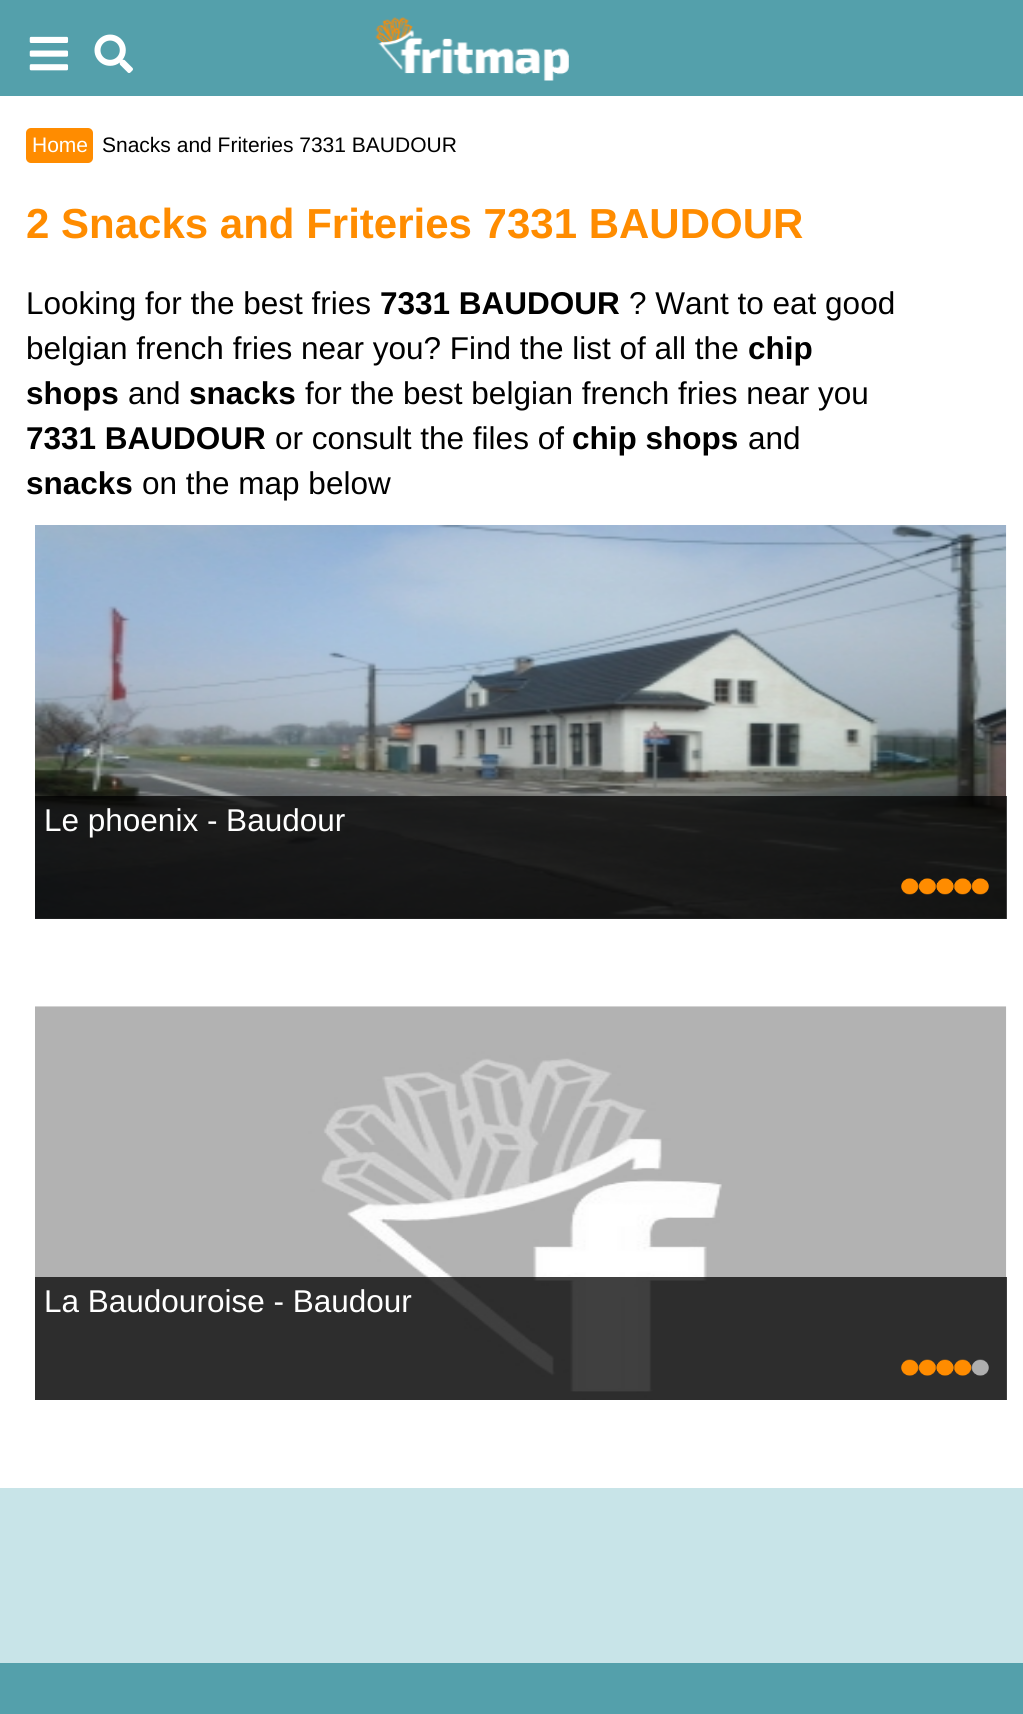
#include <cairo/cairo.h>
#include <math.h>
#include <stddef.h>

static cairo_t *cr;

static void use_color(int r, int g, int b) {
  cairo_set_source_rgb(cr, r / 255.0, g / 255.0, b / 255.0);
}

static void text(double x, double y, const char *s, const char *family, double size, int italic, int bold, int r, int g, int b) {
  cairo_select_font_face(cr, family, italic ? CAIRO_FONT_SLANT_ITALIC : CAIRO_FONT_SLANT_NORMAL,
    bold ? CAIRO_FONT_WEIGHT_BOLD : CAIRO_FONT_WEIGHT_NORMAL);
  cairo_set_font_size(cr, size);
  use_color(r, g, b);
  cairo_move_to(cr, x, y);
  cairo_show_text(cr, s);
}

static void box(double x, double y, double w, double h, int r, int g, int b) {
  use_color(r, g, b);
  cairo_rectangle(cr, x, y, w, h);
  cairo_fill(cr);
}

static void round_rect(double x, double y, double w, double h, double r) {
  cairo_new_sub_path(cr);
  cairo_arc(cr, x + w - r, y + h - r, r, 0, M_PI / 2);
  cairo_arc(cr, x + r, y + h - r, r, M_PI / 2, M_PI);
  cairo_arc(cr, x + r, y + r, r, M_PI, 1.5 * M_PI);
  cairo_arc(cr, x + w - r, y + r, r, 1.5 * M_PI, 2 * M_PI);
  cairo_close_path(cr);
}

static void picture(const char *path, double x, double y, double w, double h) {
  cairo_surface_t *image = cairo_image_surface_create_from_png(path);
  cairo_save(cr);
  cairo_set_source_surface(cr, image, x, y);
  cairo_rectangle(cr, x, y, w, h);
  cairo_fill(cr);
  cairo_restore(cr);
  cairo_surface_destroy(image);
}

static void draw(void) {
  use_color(200, 228, 232);
  cairo_paint(cr);
  box(0, 0, 1023, 96, 84, 160, 171);
  picture("img_01.png", 29, 36, 40, 35);
  picture("img_02.png", 94, 34, 39, 39);
  picture("img_03.png", 375, 17, 194, 64);
  box(0, 96, 1023, 1392, 255, 255, 255);
  use_color(255, 140, 0);
  round_rect(26, 128, 67, 35, 5);
  cairo_fill(cr);
  picture("img_04.png", 35, 525, 972, 394);
  cairo_set_source_rgba(cr, 0, 0, 0, 0.75);
  cairo_rectangle(cr, 35, 796, 972, 123);
  cairo_fill(cr);
  picture("img_05.png", 901, 878, 88, 17);
  picture("img_06.png", 35, 1006, 972, 394);
  cairo_rectangle(cr, 35, 1277, 972, 123);
  cairo_fill(cr);
  picture("img_07.png", 901, 1359, 88, 17);
  box(0, 1663, 1023, 51, 84, 160, 171);
  text(32, 152, "Home", "Liberation Sans", 21, 0, 0, 255, 255, 255);
  text(102, 152, "Snacks and Friteries 7331 BAUDOUR", "Liberation Sans", 21, 0, 0, 0, 0, 0);
  text(26, 238, "2 Snacks and Friteries 7331 BAUDOUR", "Liberation Sans", 42, 0, 1, 255, 140, 0);
  text(26, 314, "Looking for the best fries", "Liberation Sans", 31.5, 0, 0, 0, 0, 0);
  text(380, 314, "7331 BAUDOUR", "Liberation Sans", 31.5, 0, 1, 0, 0, 0);
  text(629, 314, "? Want to eat good", "Liberation Sans", 31.5, 0, 0, 0, 0, 0);
  text(26, 359, "belgian french fries near you? Find the list of all the", "Liberation Sans", 31.5, 0, 0, 0, 0, 0);
  text(748, 359, "chip", "Liberation Sans", 31.5, 0, 1, 0, 0, 0);
  text(26, 404, "shops", "Liberation Sans", 31.5, 0, 1, 0, 0, 0);
  text(128, 404, "and", "Liberation Sans", 31.5, 0, 0, 0, 0, 0);
  text(189, 404, "snacks", "Liberation Sans", 31.5, 0, 1, 0, 0, 0);
  text(305, 404, "for the best belgian french fries near you", "Liberation Sans", 31.5, 0, 0, 0, 0, 0);
  text(26, 449, "7331 BAUDOUR", "Liberation Sans", 31.5, 0, 1, 0, 0, 0);
  text(275, 449, "or consult the files of", "Liberation Sans", 31.5, 0, 0, 0, 0, 0);
  text(572, 449, "chip shops", "Liberation Sans", 31.5, 0, 1, 0, 0, 0);
  text(748, 449, "and", "Liberation Sans", 31.5, 0, 0, 0, 0, 0);
  text(26, 494, "snacks", "Liberation Sans", 31.5, 0, 1, 0, 0, 0);
  text(142, 494, "on the map below", "Liberation Sans", 31.5, 0, 0, 0, 0, 0);
  text(44, 831, "Le phoenix - Baudour", "Liberation Sans", 31.5, 0, 0, 255, 255, 255);
  text(44, 1312, "La Baudouroise - Baudour", "Liberation Sans", 31.5, 0, 0, 255, 255, 255);
}

int main(void) {
  cairo_surface_t *surface = cairo_image_surface_create(CAIRO_FORMAT_RGB24, 1023, 1714);
  cr = cairo_create(surface);
  cairo_font_options_t *options = cairo_font_options_create();
  cairo_font_options_set_hint_metrics(options, CAIRO_HINT_METRICS_OFF);
  cairo_font_options_set_hint_style(options, CAIRO_HINT_STYLE_NONE);
  cairo_set_font_options(cr, options);
  cairo_set_miter_limit(cr, 4);
  draw();
  cairo_surface_write_to_png(surface, "out.png");
  cairo_font_options_destroy(options);
  cairo_destroy(cr);
  cairo_surface_destroy(surface);
  return 0;
}
